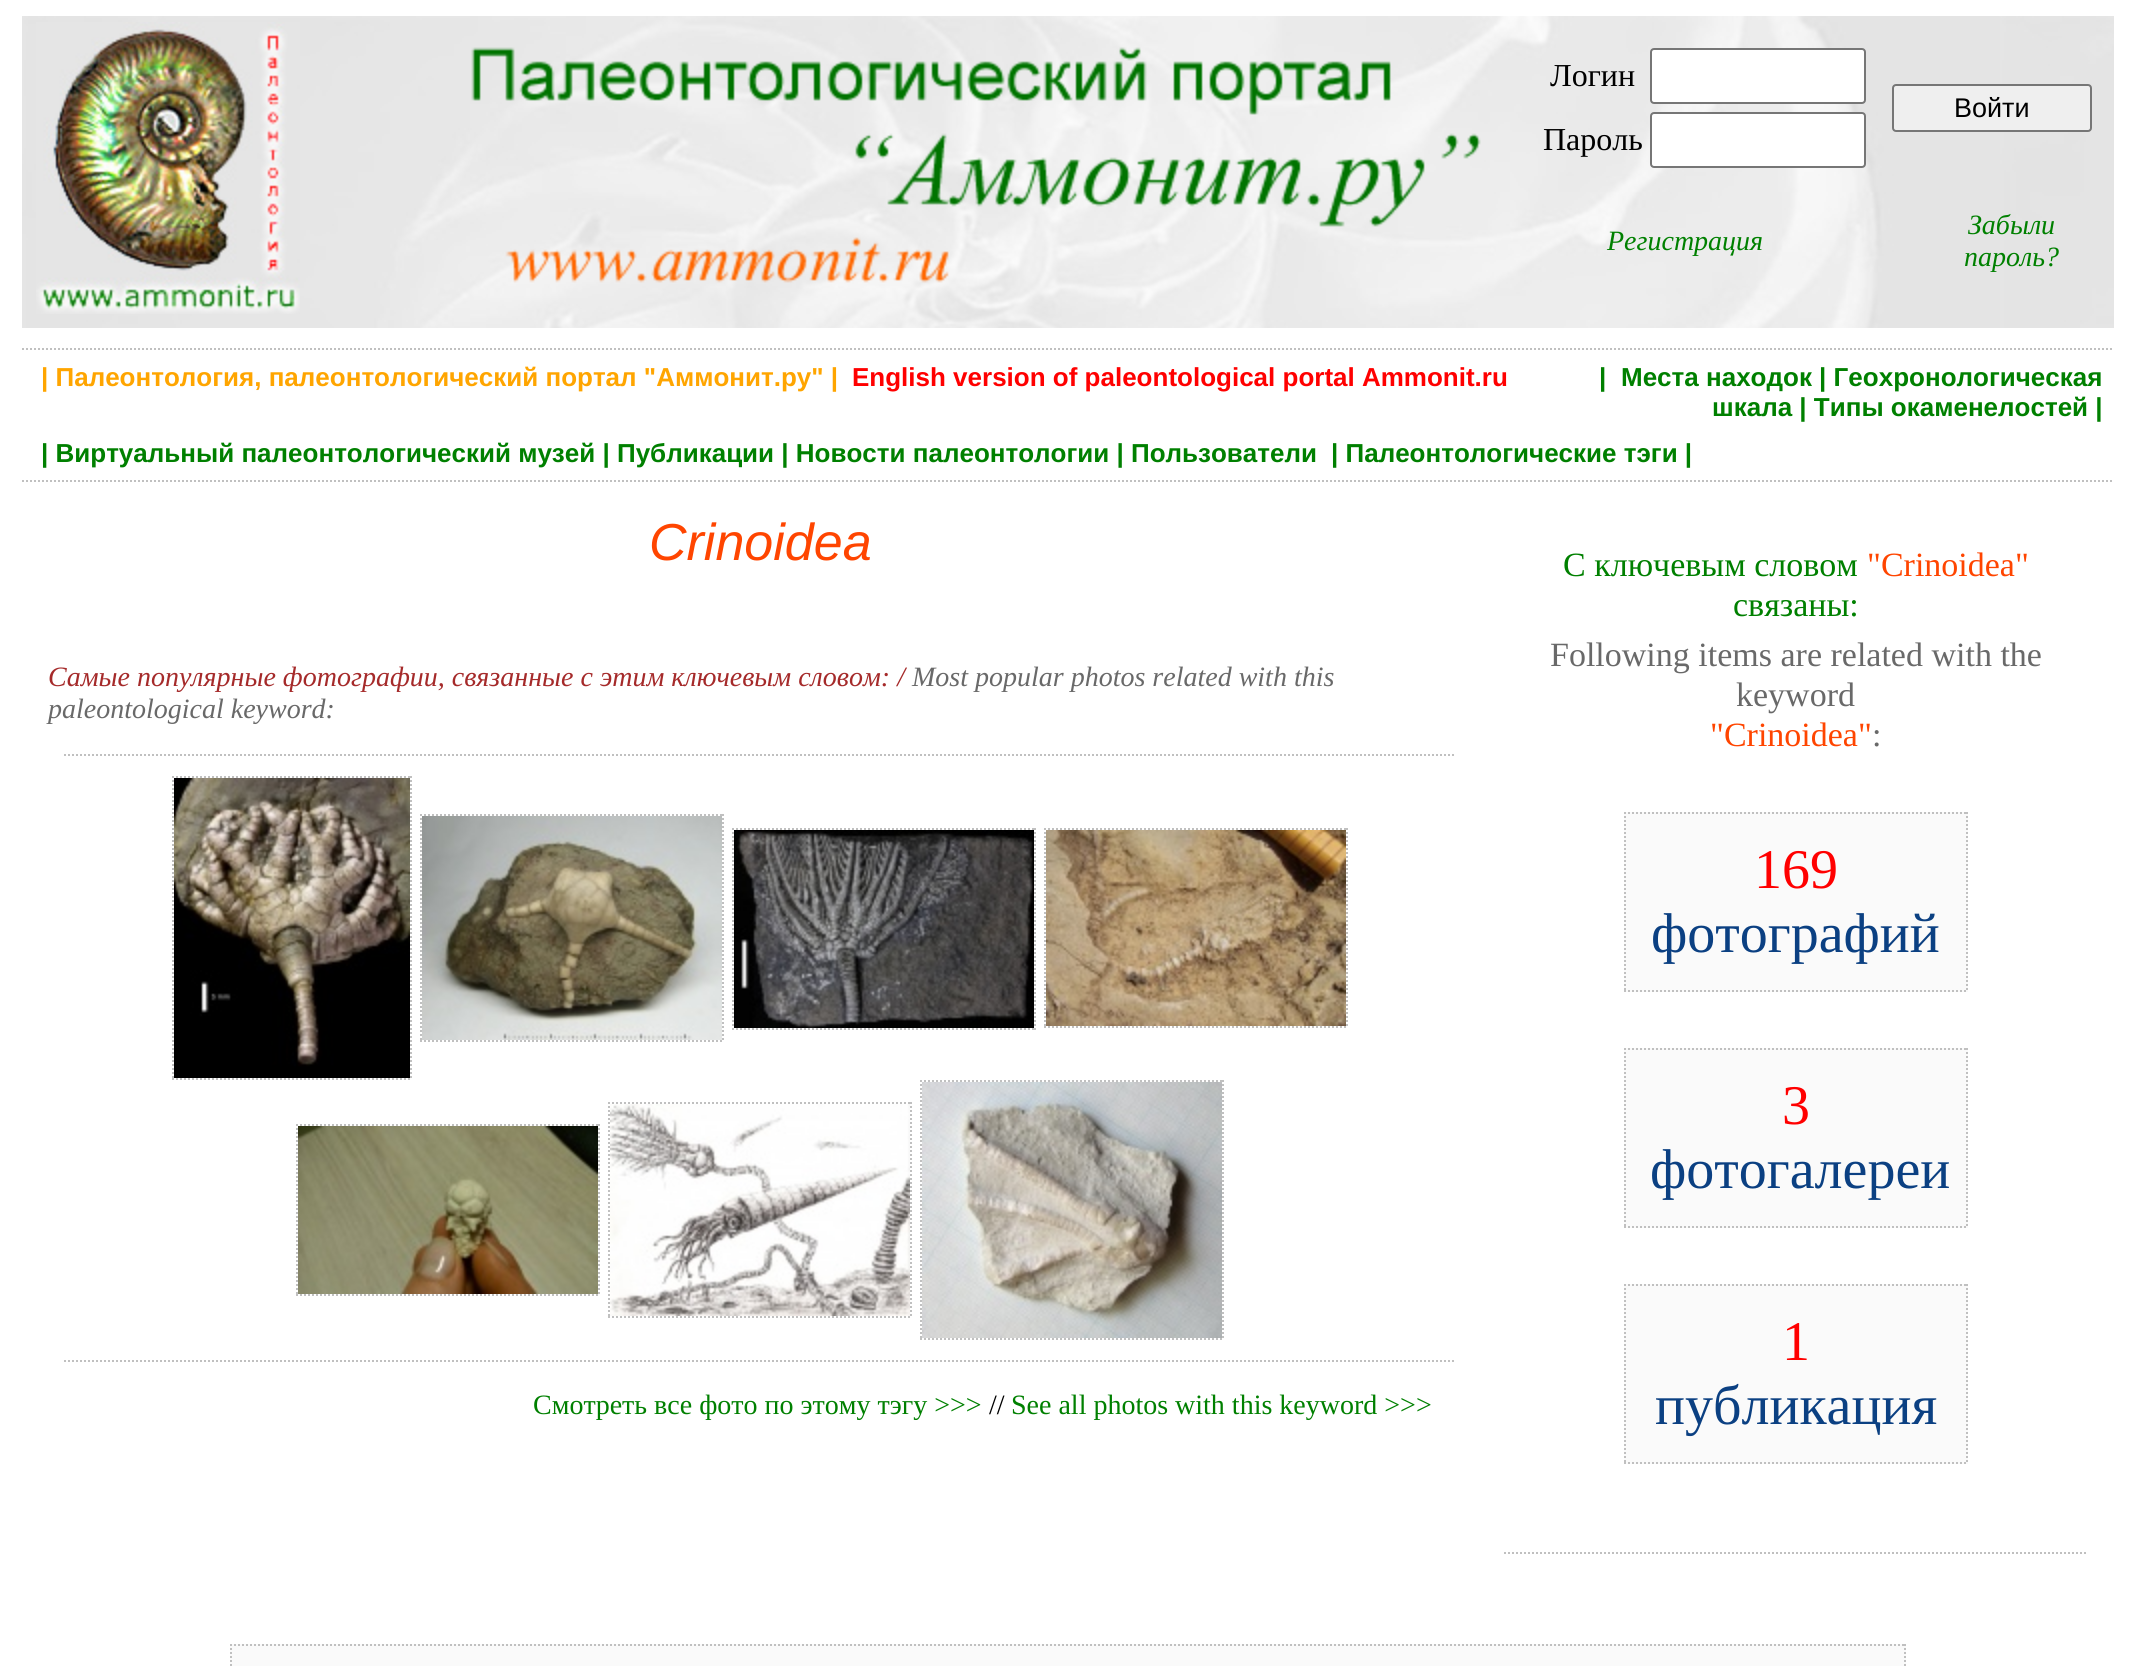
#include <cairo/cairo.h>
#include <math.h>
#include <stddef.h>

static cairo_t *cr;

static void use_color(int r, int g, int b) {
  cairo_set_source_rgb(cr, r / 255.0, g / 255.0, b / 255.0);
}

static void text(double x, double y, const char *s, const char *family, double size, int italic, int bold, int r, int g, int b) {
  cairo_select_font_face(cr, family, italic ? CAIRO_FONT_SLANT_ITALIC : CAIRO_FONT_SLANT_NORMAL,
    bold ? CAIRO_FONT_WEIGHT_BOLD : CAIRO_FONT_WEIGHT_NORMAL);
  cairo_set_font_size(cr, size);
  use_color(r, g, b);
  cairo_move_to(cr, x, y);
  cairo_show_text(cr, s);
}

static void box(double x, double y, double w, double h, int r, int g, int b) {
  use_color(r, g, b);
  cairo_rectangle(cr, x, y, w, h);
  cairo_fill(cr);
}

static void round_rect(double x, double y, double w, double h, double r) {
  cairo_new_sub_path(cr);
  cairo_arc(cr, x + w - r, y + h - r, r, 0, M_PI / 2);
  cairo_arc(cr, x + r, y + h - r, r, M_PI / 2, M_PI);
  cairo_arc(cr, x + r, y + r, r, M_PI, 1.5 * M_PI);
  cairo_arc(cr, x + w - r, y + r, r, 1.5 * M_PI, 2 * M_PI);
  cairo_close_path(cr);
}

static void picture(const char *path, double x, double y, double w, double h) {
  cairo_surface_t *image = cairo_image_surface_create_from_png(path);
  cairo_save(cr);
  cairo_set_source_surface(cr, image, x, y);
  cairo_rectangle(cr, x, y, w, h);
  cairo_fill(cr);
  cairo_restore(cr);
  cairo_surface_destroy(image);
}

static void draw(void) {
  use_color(255, 255, 255);
  cairo_paint(cr);
  picture("img_01.png", 22, 16, 2092, 312);
  picture("img_02.png", 36, 22, 264, 292);
  picture("img_03.png", 471, 47, 1010, 236);
  use_color(255, 255, 255);
  round_rect(1651, 49, 214, 54, 3);
  cairo_fill_preserve(cr);
  use_color(118, 118, 118);
  cairo_stroke(cr);
  use_color(255, 255, 255);
  round_rect(1651, 113, 214, 54, 3);
  cairo_fill_preserve(cr);
  use_color(118, 118, 118);
  cairo_stroke(cr);
  use_color(239, 239, 239);
  round_rect(1893, 85, 198, 46, 3);
  cairo_fill_preserve(cr);
  use_color(118, 118, 118);
  cairo_stroke(cr);
  cairo_new_path(cr);
  cairo_move_to(cr, 22, 349);
  cairo_line_to(cr, 2114, 349);
  use_color(192, 192, 192);
  cairo_set_dash(cr, (double[]){2, 2}, 2, 0);
  cairo_stroke(cr);
  cairo_new_path(cr);
  cairo_move_to(cr, 22, 481);
  cairo_line_to(cr, 2114, 481);
  cairo_stroke(cr);
  cairo_new_path(cr);
  cairo_move_to(cr, 64, 755);
  cairo_line_to(cr, 1456, 755);
  cairo_stroke(cr);
  cairo_new_path(cr);
  cairo_move_to(cr, 64, 1361);
  cairo_line_to(cr, 1456, 1361);
  cairo_stroke(cr);
  cairo_new_path(cr);
  cairo_move_to(cr, 172, 777);
  cairo_line_to(cr, 412, 777);
  cairo_stroke(cr);
  cairo_new_path(cr);
  cairo_move_to(cr, 173, 776);
  cairo_line_to(cr, 173, 1080);
  cairo_stroke(cr);
  picture("img_04.png", 174, 778, 236, 300);
  cairo_new_path(cr);
  cairo_move_to(cr, 411, 776);
  cairo_line_to(cr, 411, 1080);
  cairo_stroke(cr);
  cairo_new_path(cr);
  cairo_move_to(cr, 420, 815);
  cairo_line_to(cr, 724, 815);
  cairo_stroke(cr);
  cairo_new_path(cr);
  cairo_move_to(cr, 421, 814);
  cairo_line_to(cr, 421, 1042);
  cairo_stroke(cr);
  picture("img_05.png", 422, 816, 300, 224);
  cairo_new_path(cr);
  cairo_move_to(cr, 723, 814);
  cairo_line_to(cr, 723, 1042);
  cairo_stroke(cr);
  cairo_new_path(cr);
  cairo_move_to(cr, 732, 829);
  cairo_line_to(cr, 1036, 829);
  cairo_stroke(cr);
  cairo_new_path(cr);
  cairo_move_to(cr, 732, 1029);
  cairo_line_to(cr, 1036, 1029);
  cairo_stroke(cr);
  cairo_new_path(cr);
  cairo_move_to(cr, 733, 828);
  cairo_line_to(cr, 733, 1030);
  cairo_stroke(cr);
  cairo_new_path(cr);
  cairo_move_to(cr, 1035, 828);
  cairo_line_to(cr, 1035, 1030);
  cairo_stroke(cr);
  cairo_new_path(cr);
  cairo_move_to(cr, 1044, 829);
  cairo_line_to(cr, 1348, 829);
  cairo_stroke(cr);
  picture("img_06.png", 734, 830, 300, 198);
  cairo_new_path(cr);
  cairo_move_to(cr, 1045, 828);
  cairo_line_to(cr, 1045, 1028);
  cairo_stroke(cr);
  picture("img_07.png", 1046, 830, 300, 196);
  cairo_new_path(cr);
  cairo_move_to(cr, 1347, 828);
  cairo_line_to(cr, 1347, 1028);
  cairo_stroke(cr);
  cairo_new_path(cr);
  cairo_move_to(cr, 1044, 1027);
  cairo_line_to(cr, 1348, 1027);
  cairo_stroke(cr);
  cairo_new_path(cr);
  cairo_move_to(cr, 420, 1041);
  cairo_line_to(cr, 724, 1041);
  cairo_stroke(cr);
  cairo_new_path(cr);
  cairo_move_to(cr, 172, 1079);
  cairo_line_to(cr, 412, 1079);
  cairo_stroke(cr);
  cairo_new_path(cr);
  cairo_move_to(cr, 920, 1081);
  cairo_line_to(cr, 1224, 1081);
  cairo_stroke(cr);
  cairo_new_path(cr);
  cairo_move_to(cr, 608, 1103);
  cairo_line_to(cr, 912, 1103);
  cairo_stroke(cr);
  cairo_new_path(cr);
  cairo_move_to(cr, 921, 1080);
  cairo_line_to(cr, 921, 1340);
  cairo_stroke(cr);
  picture("img_08.png", 922, 1082, 300, 256);
  cairo_new_path(cr);
  cairo_move_to(cr, 1223, 1080);
  cairo_line_to(cr, 1223, 1340);
  cairo_stroke(cr);
  cairo_new_path(cr);
  cairo_move_to(cr, 296, 1125);
  cairo_line_to(cr, 600, 1125);
  cairo_stroke(cr);
  cairo_new_path(cr);
  cairo_move_to(cr, 609, 1102);
  cairo_line_to(cr, 609, 1318);
  cairo_stroke(cr);
  picture("img_09.png", 610, 1104, 300, 212);
  cairo_new_path(cr);
  cairo_move_to(cr, 911, 1102);
  cairo_line_to(cr, 911, 1318);
  cairo_stroke(cr);
  cairo_new_path(cr);
  cairo_move_to(cr, 297, 1124);
  cairo_line_to(cr, 297, 1296);
  cairo_stroke(cr);
  picture("img_10.png", 298, 1126, 300, 168);
  cairo_new_path(cr);
  cairo_move_to(cr, 599, 1124);
  cairo_line_to(cr, 599, 1296);
  cairo_stroke(cr);
  cairo_new_path(cr);
  cairo_move_to(cr, 296, 1295);
  cairo_line_to(cr, 600, 1295);
  cairo_stroke(cr);
  cairo_new_path(cr);
  cairo_move_to(cr, 608, 1317);
  cairo_line_to(cr, 912, 1317);
  cairo_stroke(cr);
  cairo_new_path(cr);
  cairo_move_to(cr, 920, 1339);
  cairo_line_to(cr, 1224, 1339);
  cairo_stroke(cr);
  cairo_new_path(cr);
  cairo_move_to(cr, 1504, 1553);
  cairo_line_to(cr, 2088, 1553);
  cairo_stroke(cr);
  box(1624, 812, 344, 180, 250, 250, 250);
  cairo_new_path(cr);
  cairo_move_to(cr, 1624, 813);
  cairo_line_to(cr, 1968, 813);
  use_color(192, 192, 192);
  cairo_stroke(cr);
  cairo_new_path(cr);
  cairo_move_to(cr, 1967, 812);
  cairo_line_to(cr, 1967, 992);
  cairo_stroke(cr);
  cairo_new_path(cr);
  cairo_move_to(cr, 1624, 991);
  cairo_line_to(cr, 1968, 991);
  cairo_stroke(cr);
  cairo_new_path(cr);
  cairo_move_to(cr, 1625, 812);
  cairo_line_to(cr, 1625, 992);
  cairo_stroke(cr);
  box(1624, 1048, 344, 180, 250, 250, 250);
  cairo_new_path(cr);
  cairo_move_to(cr, 1624, 1049);
  cairo_line_to(cr, 1968, 1049);
  use_color(192, 192, 192);
  cairo_stroke(cr);
  cairo_new_path(cr);
  cairo_move_to(cr, 1967, 1048);
  cairo_line_to(cr, 1967, 1228);
  cairo_stroke(cr);
  cairo_new_path(cr);
  cairo_move_to(cr, 1624, 1227);
  cairo_line_to(cr, 1968, 1227);
  cairo_stroke(cr);
  cairo_new_path(cr);
  cairo_move_to(cr, 1625, 1048);
  cairo_line_to(cr, 1625, 1228);
  cairo_stroke(cr);
  box(1624, 1284, 344, 180, 250, 250, 250);
  cairo_new_path(cr);
  cairo_move_to(cr, 1624, 1285);
  cairo_line_to(cr, 1968, 1285);
  use_color(192, 192, 192);
  cairo_stroke(cr);
  cairo_new_path(cr);
  cairo_move_to(cr, 1967, 1284);
  cairo_line_to(cr, 1967, 1464);
  cairo_stroke(cr);
  cairo_new_path(cr);
  cairo_move_to(cr, 1624, 1463);
  cairo_line_to(cr, 1968, 1463);
  cairo_stroke(cr);
  cairo_new_path(cr);
  cairo_move_to(cr, 1625, 1284);
  cairo_line_to(cr, 1625, 1464);
  cairo_stroke(cr);
  box(230, 1644, 1676, 22, 250, 250, 250);
  cairo_new_path(cr);
  cairo_move_to(cr, 230, 1645);
  cairo_line_to(cr, 1906, 1645);
  use_color(192, 192, 192);
  cairo_stroke(cr);
  cairo_new_path(cr);
  cairo_move_to(cr, 1905, 1644);
  cairo_line_to(cr, 1905, 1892);
  cairo_stroke(cr);
  cairo_new_path(cr);
  cairo_move_to(cr, 231, 1644);
  cairo_line_to(cr, 231, 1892);
  cairo_stroke(cr);
  text(1550, 86, "Логин", "Liberation Serif", 32, 0, 0, 0, 0, 0);
  text(1543, 150, "Пароль", "Liberation Serif", 32, 0, 0, 0, 0, 0);
  text(1954, 117, "Войти", "Liberation Sans", 27, 0, 0, 0, 0, 0);
  text(1607, 250, "Регистрация", "Liberation Serif", 28, 1, 0, 0, 128, 0);
  text(1968, 234, "Забыли", "Liberation Serif", 28, 1, 0, 0, 128, 0);
  text(1964, 266, "пароль?", "Liberation Serif", 28, 1, 0, 0, 128, 0);
  text(41, 386, "| Палеонтология, палеонтологический портал \"Аммонит.ру\" |", "Liberation Sans", 26, 0, 1, 255, 165, 0);
  text(852, 386, "English version of paleontological portal Ammonit.ru", "Liberation Sans", 26, 0, 1, 255, 0, 0);
  text(1599, 386, "|", "Liberation Sans", 26, 0, 1, 0, 128, 0);
  text(1621, 386, "Места находок | Геохронологическая", "Liberation Sans", 26, 0, 1, 0, 128, 0);
  text(1712, 416, "шкала | Типы окаменелостей |", "Liberation Sans", 26, 0, 1, 0, 128, 0);
  text(41, 462, "| Виртуальный палеонтологический музей | Публикации | Новости палеонтологии | Пользователи", "Liberation Sans", 26, 0, 1, 0, 128, 0);
  text(1331, 462, "| Палеонтологические тэги |", "Liberation Sans", 26, 0, 1, 0, 128, 0);
  text(649, 560, "Crinoidea", "Liberation Sans", 52, 1, 0, 255, 69, 0);
  text(48, 686, "Самые популярные фотографии, связанные с этим ключевым словом: /", "Liberation Serif", 28, 1, 0, 165, 42, 42);
  text(912, 686, "Most popular photos related with this", "Liberation Serif", 28, 1, 0, 105, 105, 105);
  text(48, 718, "paleontological keyword:", "Liberation Serif", 28, 1, 0, 105, 105, 105);
  text(533, 1414, "Смотреть все фото по этому тэгу >>>", "Liberation Serif", 28, 0, 0, 0, 128, 0);
  text(989, 1414, "//", "Liberation Serif", 28, 0, 0, 0, 0, 0);
  text(1011, 1414, "See all photos with this keyword >>>", "Liberation Serif", 28, 0, 0, 0, 128, 0);
  text(1563, 576, "С ключевым словом", "Liberation Serif", 34, 0, 0, 0, 128, 0);
  text(1867, 576, "\"Crinoidea\"", "Liberation Serif", 34, 0, 0, 255, 69, 0);
  text(1733, 616, "связаны:", "Liberation Serif", 34, 0, 0, 0, 128, 0);
  text(1550, 666, "Following items are related with the", "Liberation Serif", 34, 0, 0, 105, 105, 105);
  text(1736, 706, "keyword", "Liberation Serif", 34, 0, 0, 105, 105, 105);
  text(1710, 746, "\"Crinoidea\"", "Liberation Serif", 34, 0, 0, 255, 69, 0);
  text(1872, 746, ":", "Liberation Serif", 34, 0, 0, 105, 105, 105);
  text(1754, 888, "169", "Liberation Serif", 56, 0, 0, 255, 0, 0);
  text(1651, 952, "фотографий", "Liberation Serif", 56, 0, 0, 11, 64, 130);
  text(1782, 1124, "3", "Liberation Serif", 56, 0, 0, 255, 0, 0);
  text(1650, 1188, "фотогалереи", "Liberation Serif", 56, 0, 0, 11, 64, 130);
  text(1782, 1360, "1", "Liberation Serif", 56, 0, 0, 255, 0, 0);
  text(1655, 1424, "публикация", "Liberation Serif", 56, 0, 0, 11, 64, 130);
}

int main(void) {
  cairo_surface_t *surface = cairo_image_surface_create(CAIRO_FORMAT_RGB24, 2136, 1666);
  cr = cairo_create(surface);
  cairo_font_options_t *options = cairo_font_options_create();
  cairo_font_options_set_hint_metrics(options, CAIRO_HINT_METRICS_OFF);
  cairo_font_options_set_hint_style(options, CAIRO_HINT_STYLE_NONE);
  cairo_set_font_options(cr, options);
  cairo_set_miter_limit(cr, 4);
  draw();
  cairo_surface_write_to_png(surface, "out.png");
  cairo_font_options_destroy(options);
  cairo_destroy(cr);
  cairo_surface_destroy(surface);
  return 0;
}
